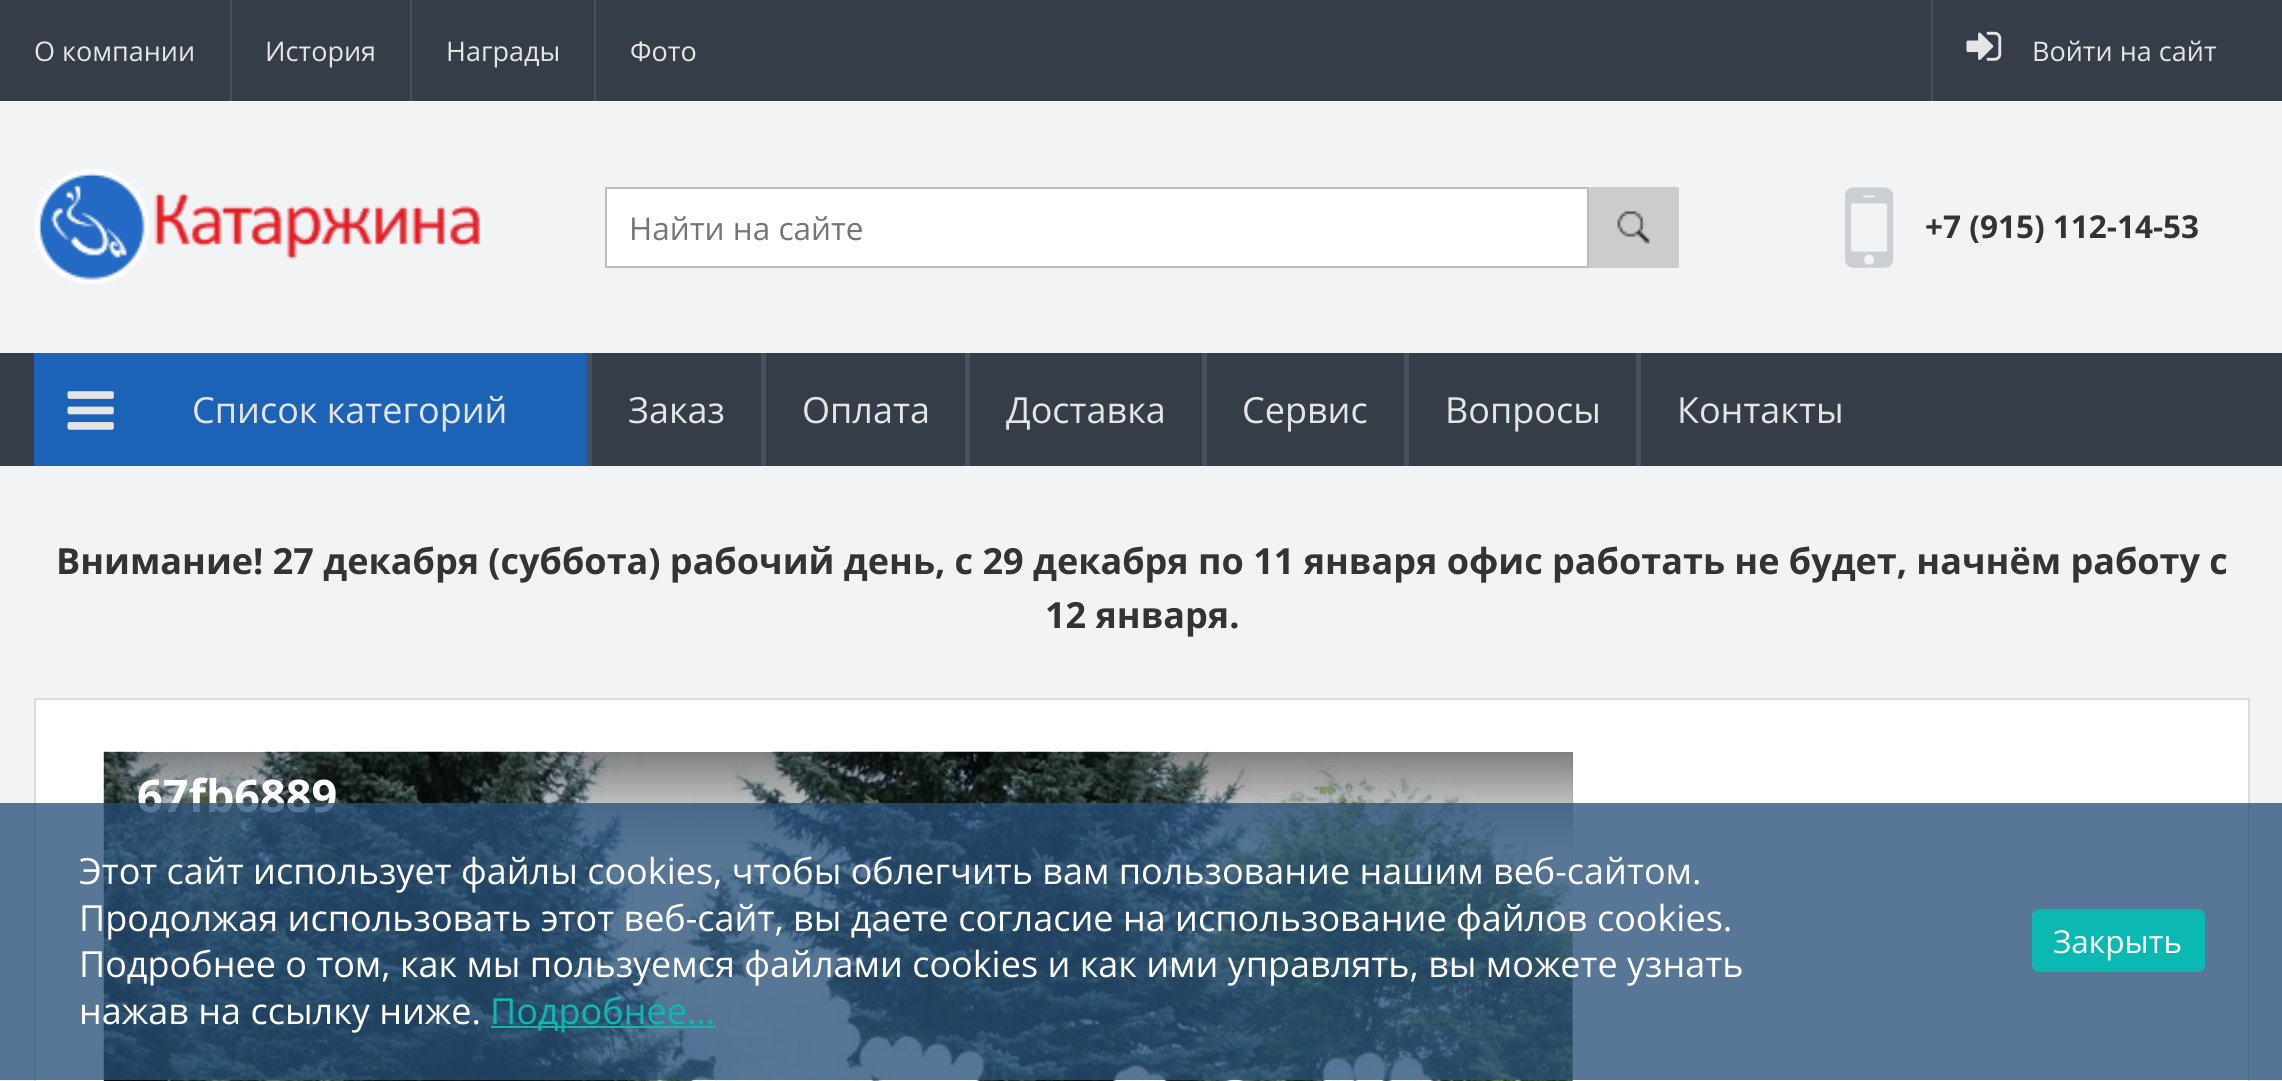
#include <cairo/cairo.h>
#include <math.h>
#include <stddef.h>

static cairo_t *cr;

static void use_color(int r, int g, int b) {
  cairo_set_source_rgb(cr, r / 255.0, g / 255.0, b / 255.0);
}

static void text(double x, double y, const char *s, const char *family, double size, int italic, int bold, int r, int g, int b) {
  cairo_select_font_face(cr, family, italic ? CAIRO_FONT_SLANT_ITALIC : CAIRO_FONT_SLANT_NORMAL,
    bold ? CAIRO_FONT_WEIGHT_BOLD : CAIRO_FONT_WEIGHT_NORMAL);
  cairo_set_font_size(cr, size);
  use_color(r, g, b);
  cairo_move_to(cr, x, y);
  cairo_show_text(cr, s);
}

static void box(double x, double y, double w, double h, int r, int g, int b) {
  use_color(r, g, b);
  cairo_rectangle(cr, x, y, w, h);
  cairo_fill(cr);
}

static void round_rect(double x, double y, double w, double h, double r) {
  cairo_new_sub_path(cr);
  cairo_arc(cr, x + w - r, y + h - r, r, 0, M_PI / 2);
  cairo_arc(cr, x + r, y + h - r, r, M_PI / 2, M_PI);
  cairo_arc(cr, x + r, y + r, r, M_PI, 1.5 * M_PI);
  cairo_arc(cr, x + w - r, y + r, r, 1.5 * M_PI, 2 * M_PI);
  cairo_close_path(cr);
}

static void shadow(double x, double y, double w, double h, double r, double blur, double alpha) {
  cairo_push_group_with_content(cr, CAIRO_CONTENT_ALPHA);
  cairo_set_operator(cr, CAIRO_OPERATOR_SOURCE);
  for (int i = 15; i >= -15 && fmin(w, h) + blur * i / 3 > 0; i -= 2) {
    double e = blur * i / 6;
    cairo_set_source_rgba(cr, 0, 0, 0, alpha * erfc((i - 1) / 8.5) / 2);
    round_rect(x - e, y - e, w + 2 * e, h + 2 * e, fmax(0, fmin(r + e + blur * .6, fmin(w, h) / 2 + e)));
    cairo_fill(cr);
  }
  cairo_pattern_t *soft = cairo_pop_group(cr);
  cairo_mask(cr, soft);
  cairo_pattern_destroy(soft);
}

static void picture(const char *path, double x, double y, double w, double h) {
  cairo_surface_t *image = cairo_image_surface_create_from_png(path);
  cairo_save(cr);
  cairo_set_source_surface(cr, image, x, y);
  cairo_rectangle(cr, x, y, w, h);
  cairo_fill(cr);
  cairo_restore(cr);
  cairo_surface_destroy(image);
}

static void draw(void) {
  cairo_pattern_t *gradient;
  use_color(242, 243, 245);
  cairo_paint(cr);
  box(0, 0, 2282, 101, 53, 62, 72);
  box(230, 0, 2, 101, 73, 81, 90);
  box(410, 0, 2, 101, 73, 81, 90);
  box(594, 0, 2, 101, 73, 81, 90);
  box(1931, 0, 2, 101, 73, 81, 90);
  picture("img_01.png", 1966, 31, 36, 30);
  picture("img_02.png", 34, 169, 446, 115);
  use_color(255, 255, 255);
  cairo_rectangle(cr, 606, 188, 982, 79);
  cairo_fill_preserve(cr);
  use_color(189, 189, 189);
  cairo_stroke(cr);
  use_color(204, 204, 204);
  round_rect(1589, 187, 90, 81, 2);
  cairo_fill(cr);
  picture("img_03.png", 1617, 211, 33, 33);
  picture("img_04.png", 1845, 187, 49, 81);
  box(0, 353, 2282, 113, 53, 62, 72);
  box(34, 353, 553, 113, 28, 99, 184);
  picture("img_05.png", 67, 391, 47, 39);
  box(587, 353, 5, 113, 73, 81, 90);
  box(761, 353, 5, 113, 73, 81, 90);
  box(965, 353, 5, 113, 73, 81, 90);
  box(1202, 353, 5, 113, 73, 81, 90);
  box(1404, 353, 5, 113, 73, 81, 90);
  box(1636, 353, 5, 113, 73, 81, 90);
  use_color(255, 255, 255);
  cairo_rectangle(cr, 35, 699, 2214, 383);
  cairo_fill_preserve(cr);
  use_color(221, 221, 221);
  cairo_stroke(cr);
  cairo_save(cr);
  cairo_rectangle(cr, 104, 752, 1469, 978);
  cairo_clip(cr);
  use_color(0, 0, 30);
  shadow(104, 754, 1469, 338, 0, 3.5, 0.3);
  cairo_restore(cr);
  picture("img_06.png", 103, 751, 1470, 330);
  gradient = cairo_pattern_create_linear(838, 751, 838, 855);
  cairo_pattern_add_color_stop_rgba(gradient, 0, 0, 0, 0, 0.5);
  cairo_pattern_add_color_stop_rgba(gradient, 1, 0, 0, 0, 0);
  cairo_set_source(cr, gradient);
  cairo_pattern_destroy(gradient);
  cairo_rectangle(cr, 104, 752, 1469, 99);
  cairo_fill(cr);
  text(34, 61, "О компании", "Open Sans", 27, 0, 0, 229, 229, 229);
  text(265, 61, "История", "Open Sans", 27, 0, 0, 229, 229, 229);
  text(446, 61, "Награды", "Open Sans", 27, 0, 0, 229, 229, 229);
  text(630, 61, "Фото", "Open Sans", 27, 0, 0, 229, 229, 229);
  text(2032, 61, "Войти на сайт", "Open Sans", 27, 0, 0, 229, 229, 229);
  text(629, 240, "Найти на сайте", "Open Sans", 31.5, 0, 0, 117, 117, 117);
  text(1925, 238, "+7 (915) 112-14-53", "Open Sans", 31.5, 0, 1, 51, 51, 51);
  text(192, 423, "Список категорий", "Open Sans", 36, 0, 0, 229, 229, 229);
  text(628, 423, "Заказ", "Open Sans", 36, 0, 0, 229, 229, 229);
  text(802, 423, "Оплата", "Open Sans", 36, 0, 0, 229, 229, 229);
  text(1006, 423, "Доставка", "Open Sans", 36, 0, 0, 229, 229, 229);
  text(1242, 423, "Сервис", "Open Sans", 36, 0, 0, 229, 229, 229);
  text(1445, 423, "Вопросы", "Open Sans", 36, 0, 0, 229, 229, 229);
  text(1677, 423, "Контакты", "Open Sans", 36, 0, 0, 229, 229, 229);
  text(56, 574, "Внимание! 27 декабря (суббота) рабочий день, с 29 декабря по 11 января офис работать не будет, начнём работу с", "Open Sans", 36, 0, 1, 51, 51, 51);
  text(1045, 628, "12 января.", "Open Sans", 36, 0, 1, 51, 51, 51);
  text(137, 812, "67fb6889", "Open Sans", 45, 0, 1, 255, 255, 255);
  cairo_set_source_rgba(cr, 0.153, 0.31, 0.467, 0.77);
  cairo_rectangle(cr, 0, 803, 2282, 277);
  cairo_fill(cr);
  text(79, 884, "Этот сайт использует файлы cookies, чтобы облегчить вам пользование нашим веб-сайтом.", "Open Sans", 36, 0, 0, 255, 255, 255);
  text(79, 931, "Продолжая использовать этот веб-сайт, вы даете согласие на использование файлов cookies.", "Open Sans", 36, 0, 0, 255, 255, 255);
  text(79, 977, "Подробнее о том, как мы пользуемся файлами cookies и как ими управлять, вы можете узнать", "Open Sans", 36, 0, 0, 255, 255, 255);
  text(79, 1024, "нажав на ссылку ниже.", "Open Sans", 36, 0, 0, 255, 255, 255);
  box(491, 1026, 225, 2, 12, 185, 178);
  text(490, 1024, "Подробнее...", "Open Sans", 36, 0, 0, 12, 185, 178);
  round_rect(2032, 909, 173, 63, 7);
  cairo_fill(cr);
  text(2053, 953, "Закрыть", "Open Sans", 31.5, 0, 0, 255, 255, 255);
}

int main(void) {
  cairo_surface_t *surface = cairo_image_surface_create(CAIRO_FORMAT_RGB24, 2282, 1081);
  cr = cairo_create(surface);
  cairo_font_options_t *options = cairo_font_options_create();
  cairo_font_options_set_hint_metrics(options, CAIRO_HINT_METRICS_OFF);
  cairo_font_options_set_hint_style(options, CAIRO_HINT_STYLE_NONE);
  cairo_set_font_options(cr, options);
  cairo_set_miter_limit(cr, 4);
  draw();
  cairo_surface_write_to_png(surface, "out.png");
  cairo_font_options_destroy(options);
  cairo_destroy(cr);
  cairo_surface_destroy(surface);
  return 0;
}
